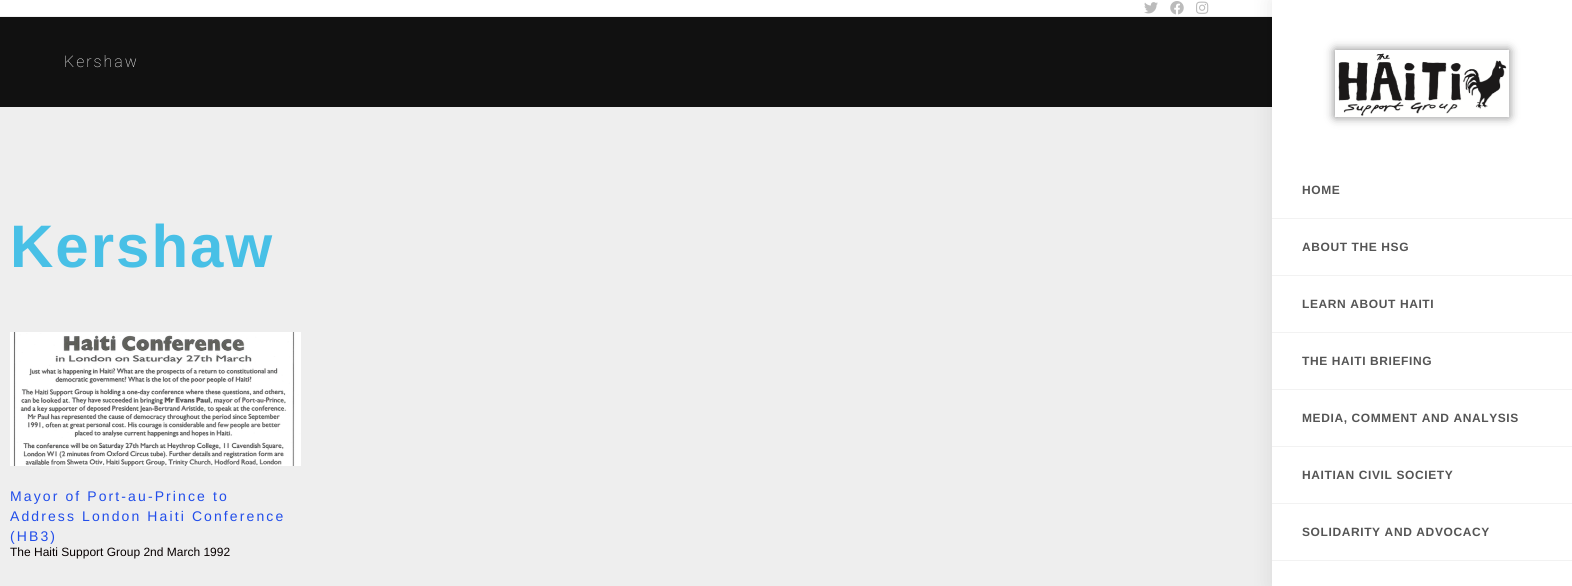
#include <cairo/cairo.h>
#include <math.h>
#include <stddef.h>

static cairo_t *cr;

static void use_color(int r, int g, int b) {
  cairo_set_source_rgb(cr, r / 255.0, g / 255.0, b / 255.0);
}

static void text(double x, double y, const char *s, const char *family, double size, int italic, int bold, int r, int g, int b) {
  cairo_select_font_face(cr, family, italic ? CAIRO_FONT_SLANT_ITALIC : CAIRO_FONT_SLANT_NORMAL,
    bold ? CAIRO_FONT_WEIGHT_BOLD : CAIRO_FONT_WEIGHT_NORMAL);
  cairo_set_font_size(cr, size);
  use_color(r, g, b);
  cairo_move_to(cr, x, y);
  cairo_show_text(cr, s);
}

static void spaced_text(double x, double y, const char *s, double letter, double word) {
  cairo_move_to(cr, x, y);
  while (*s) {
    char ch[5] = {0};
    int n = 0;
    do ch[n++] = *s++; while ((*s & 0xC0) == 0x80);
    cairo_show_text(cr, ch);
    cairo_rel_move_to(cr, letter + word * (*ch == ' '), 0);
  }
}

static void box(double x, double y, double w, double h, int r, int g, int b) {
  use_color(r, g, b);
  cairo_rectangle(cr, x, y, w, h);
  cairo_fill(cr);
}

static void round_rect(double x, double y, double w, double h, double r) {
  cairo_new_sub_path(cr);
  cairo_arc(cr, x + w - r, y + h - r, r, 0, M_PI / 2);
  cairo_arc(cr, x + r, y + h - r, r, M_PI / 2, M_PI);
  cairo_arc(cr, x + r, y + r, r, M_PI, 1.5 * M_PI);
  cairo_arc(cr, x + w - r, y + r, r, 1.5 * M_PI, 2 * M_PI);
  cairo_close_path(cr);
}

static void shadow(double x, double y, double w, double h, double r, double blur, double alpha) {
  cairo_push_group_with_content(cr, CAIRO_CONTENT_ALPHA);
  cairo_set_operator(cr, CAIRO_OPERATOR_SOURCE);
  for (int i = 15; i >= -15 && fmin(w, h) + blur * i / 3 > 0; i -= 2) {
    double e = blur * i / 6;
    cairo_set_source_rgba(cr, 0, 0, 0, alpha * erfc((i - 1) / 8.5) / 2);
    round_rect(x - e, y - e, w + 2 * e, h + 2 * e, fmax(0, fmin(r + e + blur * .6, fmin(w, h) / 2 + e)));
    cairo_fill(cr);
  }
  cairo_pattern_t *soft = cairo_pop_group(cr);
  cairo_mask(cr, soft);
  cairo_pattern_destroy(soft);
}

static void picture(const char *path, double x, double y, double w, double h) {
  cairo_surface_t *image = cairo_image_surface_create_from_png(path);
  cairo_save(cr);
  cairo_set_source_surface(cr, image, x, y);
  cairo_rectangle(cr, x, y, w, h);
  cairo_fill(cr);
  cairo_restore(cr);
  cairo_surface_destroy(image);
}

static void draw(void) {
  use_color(17, 17, 17);
  cairo_paint(cr);
  box(0, 0, 1272, 16, 255, 255, 255);
  box(0, 16, 1272, 1, 241, 241, 241);
  picture("img_01.png", 1144, 2, 14, 12);
  picture("img_02.png", 1170, 1, 14, 14);
  picture("img_03.png", 1196, 1, 13, 13);
  box(0, 107, 1272, 479, 238, 238, 238);
  picture("img_04.png", 10, 332, 291, 134);
  use_color(0, 0, 0);
  shadow(1272, 0, 300, 586, 0, 10, 0.1);
  box(1272, 0, 300, 586, 255, 255, 255);
  cairo_save(cr);
  cairo_set_fill_rule(cr, CAIRO_FILL_RULE_EVEN_ODD);
  cairo_new_path(cr);
  cairo_move_to(cr, 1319, 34);
  cairo_line_to(cr, 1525, 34);
  cairo_line_to(cr, 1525, 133);
  cairo_line_to(cr, 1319, 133);
  cairo_close_path(cr);
  cairo_move_to(cr, 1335, 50);
  cairo_line_to(cr, 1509, 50);
  cairo_line_to(cr, 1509, 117);
  cairo_line_to(cr, 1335, 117);
  cairo_close_path(cr);
  cairo_clip(cr);
  use_color(0, 0, 0);
  shadow(1335, 50, 174, 67, 0, 5, 0.5);
  cairo_restore(cr);
  picture("img_05.png", 1338, 53, 172, 65);
  box(1272, 218, 300, 1, 242, 242, 242);
  box(1272, 275, 300, 1, 242, 242, 242);
  box(1272, 332, 300, 1, 242, 242, 242);
  box(1272, 389, 300, 1, 242, 242, 242);
  box(1272, 446, 300, 1, 242, 242, 242);
  box(1272, 503, 300, 1, 242, 242, 242);
  box(1272, 560, 300, 1, 242, 242, 242);
  cairo_select_font_face(cr, "Roboto Thin", CAIRO_FONT_SLANT_NORMAL, CAIRO_FONT_WEIGHT_NORMAL);
  cairo_set_font_size(cr, 16);
  use_color(255, 255, 255);
  spaced_text(64, 67, "Kershaw", 2, 0);
  cairo_select_font_face(cr, "Liberation Sans", CAIRO_FONT_SLANT_NORMAL, CAIRO_FONT_WEIGHT_BOLD);
  cairo_set_font_size(cr, 60);
  use_color(72, 192, 230);
  spaced_text(10, 267, "Kershaw", 2, 0);
  cairo_select_font_face(cr, "Liberation Sans", CAIRO_FONT_SLANT_NORMAL, CAIRO_FONT_WEIGHT_NORMAL);
  cairo_set_font_size(cr, 14);
  use_color(33, 77, 234);
  spaced_text(10, 501, "Mayor of Port-au-Prince to", 2.1, 0);
  spaced_text(10, 521, "Address London Haiti Conference", 2.1, 0);
  spaced_text(10, 541, "(HB3)", 2.1, 0);
  text(10, 556, "The Haiti Support Group 2nd March 1992", "Liberation Sans", 12, 0, 0, 7, 0, 0);
  cairo_select_font_face(cr, "Liberation Sans", CAIRO_FONT_SLANT_NORMAL, CAIRO_FONT_WEIGHT_BOLD);
  use_color(85, 85, 85);
  spaced_text(1302, 194, "HOME", 0.6, 0);
  spaced_text(1302, 251, "ABOUT THE HSG", 0.6, 0);
  spaced_text(1302, 308, "LEARN ABOUT HAITI", 0.6, 0);
  spaced_text(1302, 365, "THE HAITI BRIEFING", 0.6, 0);
  spaced_text(1302, 422, "MEDIA, COMMENT AND ANALYSIS", 0.6, 0);
  spaced_text(1302, 479, "HAITIAN CIVIL SOCIETY", 0.6, 0);
  spaced_text(1302, 536, "SOLIDARITY AND ADVOCACY", 0.6, 0);
}

int main(void) {
  cairo_surface_t *surface = cairo_image_surface_create(CAIRO_FORMAT_RGB24, 1572, 586);
  cr = cairo_create(surface);
  cairo_font_options_t *options = cairo_font_options_create();
  cairo_font_options_set_hint_metrics(options, CAIRO_HINT_METRICS_OFF);
  cairo_font_options_set_hint_style(options, CAIRO_HINT_STYLE_NONE);
  cairo_set_font_options(cr, options);
  cairo_set_miter_limit(cr, 4);
  draw();
  cairo_surface_write_to_png(surface, "out.png");
  cairo_font_options_destroy(options);
  cairo_destroy(cr);
  cairo_surface_destroy(surface);
  return 0;
}
